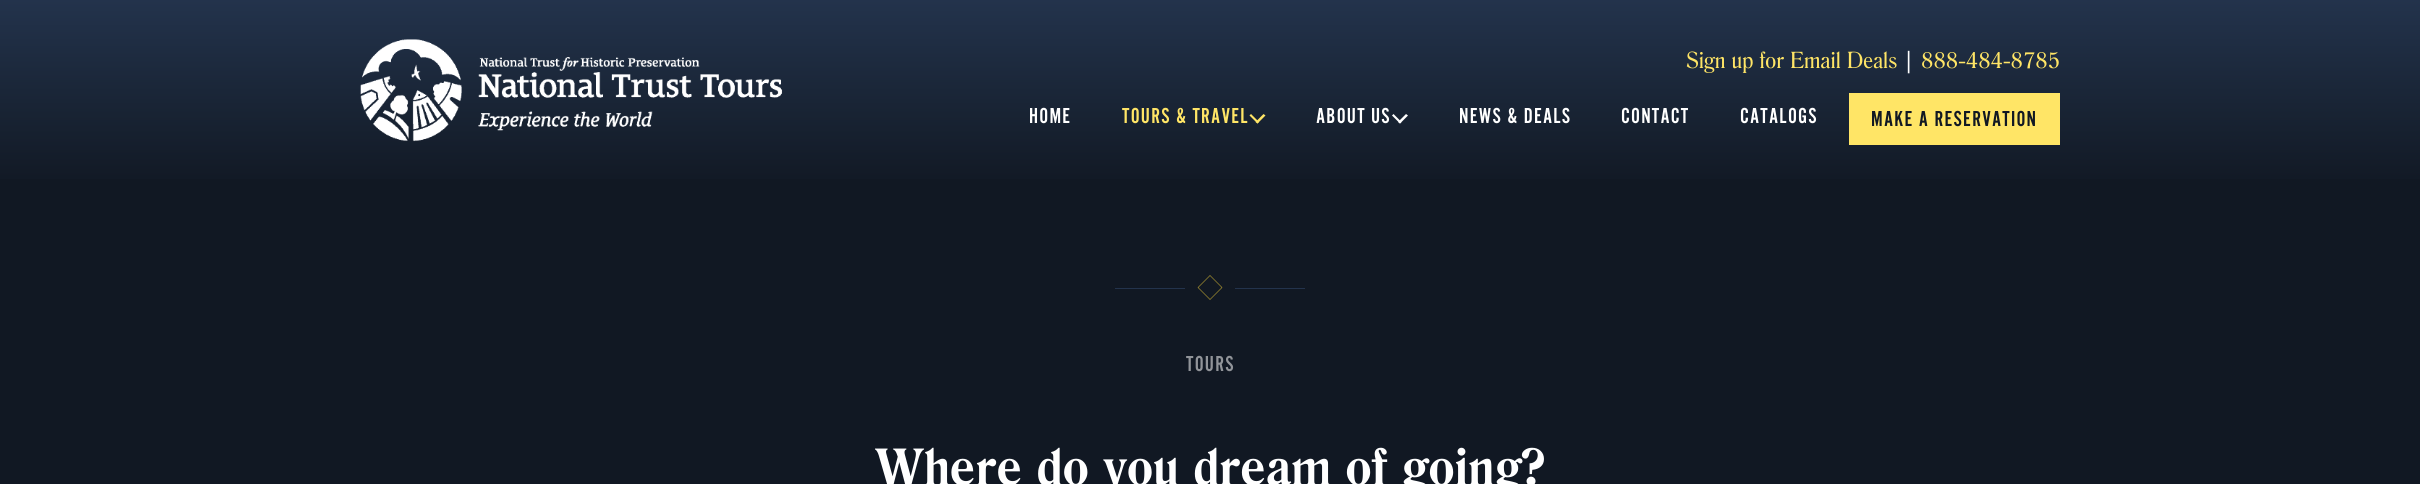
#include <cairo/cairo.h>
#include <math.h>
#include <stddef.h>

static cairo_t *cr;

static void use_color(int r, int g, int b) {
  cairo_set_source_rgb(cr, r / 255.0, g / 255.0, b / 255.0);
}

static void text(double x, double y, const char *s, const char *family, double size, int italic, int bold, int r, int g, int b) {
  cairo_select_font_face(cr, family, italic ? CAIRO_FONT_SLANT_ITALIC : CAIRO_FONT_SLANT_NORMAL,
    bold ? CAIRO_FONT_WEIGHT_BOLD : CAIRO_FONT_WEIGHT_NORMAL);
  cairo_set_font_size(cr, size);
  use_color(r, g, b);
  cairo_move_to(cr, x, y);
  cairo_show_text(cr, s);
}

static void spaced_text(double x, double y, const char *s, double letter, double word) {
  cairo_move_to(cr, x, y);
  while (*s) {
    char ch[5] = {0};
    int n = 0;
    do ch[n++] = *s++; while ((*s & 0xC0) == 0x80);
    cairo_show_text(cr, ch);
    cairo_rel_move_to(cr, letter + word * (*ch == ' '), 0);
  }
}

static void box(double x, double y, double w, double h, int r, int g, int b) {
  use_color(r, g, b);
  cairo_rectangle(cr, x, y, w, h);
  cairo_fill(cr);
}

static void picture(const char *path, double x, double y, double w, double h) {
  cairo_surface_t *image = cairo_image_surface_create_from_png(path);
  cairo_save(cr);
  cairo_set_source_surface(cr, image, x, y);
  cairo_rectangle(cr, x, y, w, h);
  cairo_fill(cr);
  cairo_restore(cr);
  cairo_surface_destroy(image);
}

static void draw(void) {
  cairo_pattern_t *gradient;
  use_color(17, 24, 35);
  cairo_paint(cr);
  gradient = cairo_pattern_create_linear(1210, 0, 1210, 191);
  cairo_pattern_add_color_stop_rgba(gradient, 0, 0.137, 0.2, 0.298, 1);
  cairo_pattern_add_color_stop_rgba(gradient, 0.6, 0.094, 0.137, 0.2, 1);
  cairo_pattern_add_color_stop_rgba(gradient, 1, 0.067, 0.094, 0.137, 1);
  cairo_set_source(cr, gradient);
  cairo_pattern_destroy(gradient);
  cairo_rectangle(cr, 0, 0, 2420, 179);
  cairo_fill(cr);
  picture("img_01.png", 360, 39, 423, 103);
  use_color(255, 229, 102);
  cairo_new_path(cr);
  cairo_move_to(cr, 1263.5, 114);
  cairo_line_to(cr, 1265.5, 115.5);
  cairo_line_to(cr, 1257.5, 123.5);
  cairo_line_to(cr, 1255.5, 122);
  cairo_close_path(cr);
  cairo_fill(cr);
  cairo_new_path(cr);
  cairo_move_to(cr, 1251, 114);
  cairo_line_to(cr, 1259, 122);
  cairo_line_to(cr, 1257.5, 123.5);
  cairo_line_to(cr, 1249.5, 115.5);
  cairo_close_path(cr);
  cairo_fill(cr);
  use_color(255, 255, 255);
  cairo_new_path(cr);
  cairo_move_to(cr, 1406, 114);
  cairo_line_to(cr, 1408, 115.5);
  cairo_line_to(cr, 1400, 123.5);
  cairo_line_to(cr, 1398, 122);
  cairo_close_path(cr);
  cairo_fill(cr);
  cairo_new_path(cr);
  cairo_move_to(cr, 1393.5, 114);
  cairo_line_to(cr, 1401.5, 122);
  cairo_line_to(cr, 1400, 123.5);
  cairo_line_to(cr, 1392, 115.5);
  cairo_close_path(cr);
  cairo_fill(cr);
  box(1849, 93, 211, 52, 255, 229, 102);
  box(1115, 288, 70, 1, 35, 51, 76);
  cairo_new_path(cr);
  cairo_move_to(cr, 1210, 275.5);
  cairo_line_to(cr, 1222, 287.5);
  cairo_line_to(cr, 1210, 299.5);
  cairo_line_to(cr, 1198, 287.5);
  cairo_close_path(cr);
  use_color(214, 183, 52);
  cairo_set_line_width(cr, 0.5);
  cairo_stroke(cr);
  box(1235, 288, 70, 1, 35, 51, 76);
  text(1686, 68, "Sign up for Email Deals", "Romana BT", 22.5, 0, 0, 255, 229, 102);
  text(1903, 68, "|", "Romana BT", 22.5, 0, 0, 255, 255, 255);
  text(1921, 68, "888-484-8785", "Romana BT", 22.5, 0, 0, 255, 229, 102);
  cairo_select_font_face(cr, "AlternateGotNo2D", CAIRO_FONT_SLANT_NORMAL, CAIRO_FONT_WEIGHT_NORMAL);
  use_color(255, 255, 255);
  spaced_text(1029, 123, "HOME", 1.25, 0);
  use_color(255, 229, 102);
  spaced_text(1122, 123, "TOURS & TRAVEL", 1.25, 0);
  use_color(255, 255, 255);
  spaced_text(1316, 123, "ABOUT US", 1.25, 0);
  spaced_text(1459, 123, "NEWS & DEALS", 1.25, 0);
  spaced_text(1621, 123, "CONTACT", 1.25, 0);
  spaced_text(1740, 123, "CATALOGS", 1.25, 0);
  use_color(17, 24, 35);
  spaced_text(1871, 126, "MAKE A RESERVATION", 1.25, 0);
  use_color(145, 148, 153);
  spaced_text(1186, 371, "TOURS", 1.25, 0);
  text(875, 485, "Where do you dream of going?", "Romana BT", 50, 0, 1, 255, 255, 255);
}

int main(void) {
  cairo_surface_t *surface = cairo_image_surface_create(CAIRO_FORMAT_RGB24, 2420, 484);
  cr = cairo_create(surface);
  cairo_font_options_t *options = cairo_font_options_create();
  cairo_font_options_set_hint_metrics(options, CAIRO_HINT_METRICS_OFF);
  cairo_font_options_set_hint_style(options, CAIRO_HINT_STYLE_NONE);
  cairo_set_font_options(cr, options);
  cairo_set_miter_limit(cr, 4);
  draw();
  cairo_surface_write_to_png(surface, "out.png");
  cairo_font_options_destroy(options);
  cairo_destroy(cr);
  cairo_surface_destroy(surface);
  return 0;
}
